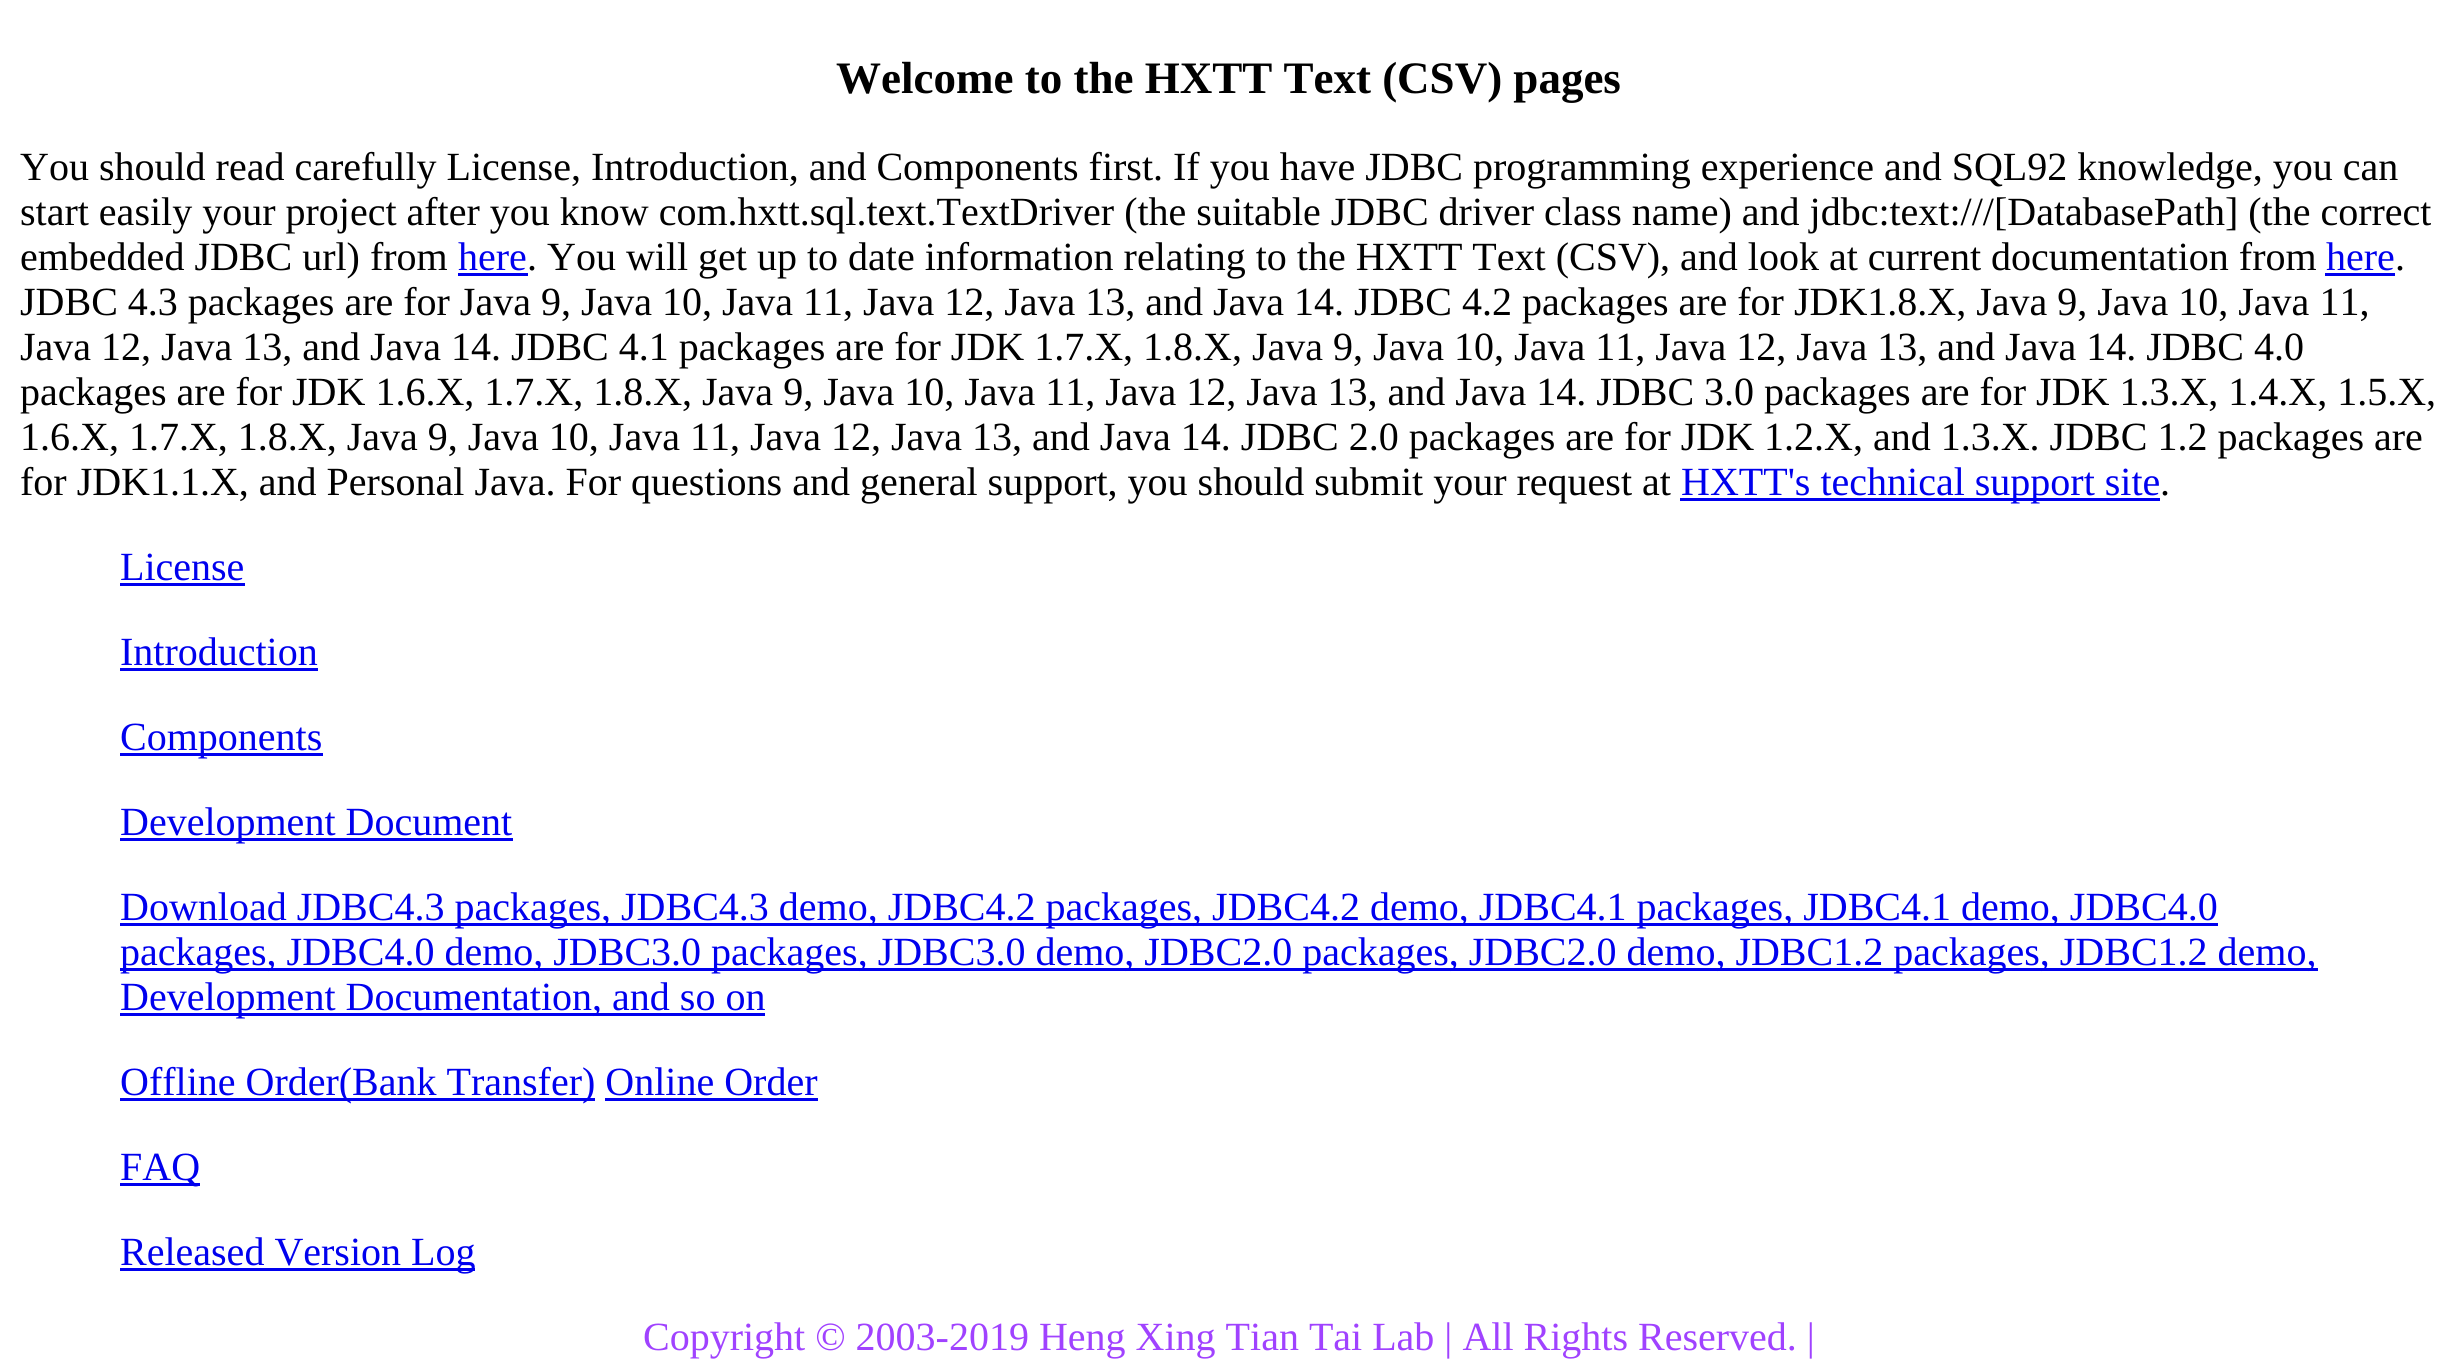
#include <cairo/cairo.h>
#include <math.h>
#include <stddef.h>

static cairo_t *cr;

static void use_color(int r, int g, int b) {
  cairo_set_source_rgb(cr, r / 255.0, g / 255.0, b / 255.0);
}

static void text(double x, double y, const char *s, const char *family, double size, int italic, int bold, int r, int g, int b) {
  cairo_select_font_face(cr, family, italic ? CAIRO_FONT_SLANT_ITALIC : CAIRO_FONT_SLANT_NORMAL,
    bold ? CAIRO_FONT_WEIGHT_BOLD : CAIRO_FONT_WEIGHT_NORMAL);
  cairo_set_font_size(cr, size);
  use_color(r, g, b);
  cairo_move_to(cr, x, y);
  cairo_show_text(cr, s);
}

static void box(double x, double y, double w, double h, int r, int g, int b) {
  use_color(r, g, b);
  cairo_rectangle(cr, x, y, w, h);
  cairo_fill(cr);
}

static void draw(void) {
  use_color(255, 255, 255);
  cairo_paint(cr);
  box(458, 273, 70, 3, 0, 0, 238);
  box(2325, 273, 70, 3, 0, 0, 238);
  box(1680, 498, 480, 3, 0, 0, 238);
  box(120, 583, 125, 3, 0, 0, 238);
  box(120, 668, 198, 3, 0, 0, 238);
  box(120, 753, 203, 3, 0, 0, 238);
  box(120, 838, 393, 3, 0, 0, 238);
  box(120, 923, 2098, 3, 0, 0, 238);
  box(120, 968, 2198, 3, 0, 0, 238);
  box(120, 1013, 645, 3, 0, 0, 238);
  box(120, 1098, 475, 3, 0, 0, 238);
  box(605, 1098, 213, 3, 0, 0, 238);
  box(120, 1183, 80, 3, 0, 0, 238);
  box(120, 1268, 355, 3, 0, 0, 238);
  text(836, 93, "Welcome to the HXTT Text (CSV) pages", "Liberation Serif", 45, 0, 1, 0, 0, 0);
  text(20, 180, "You should read carefully License, Introduction, and Components first. If you have JDBC programming experience and SQL92 knowledge, you can", "Liberation Serif", 40, 0, 0, 0, 0, 0);
  text(20, 225, "start easily your project after you know com.hxtt.sql.text.TextDriver (the suitable JDBC driver class name) and jdbc:text:///[DatabasePath] (the correct", "Liberation Serif", 40, 0, 0, 0, 0, 0);
  text(20, 270, "embedded JDBC url) from", "Liberation Serif", 40, 0, 0, 0, 0, 0);
  text(458, 270, "here", "Liberation Serif", 40, 0, 0, 0, 0, 238);
  text(527, 270, ". You will get up to date information relating to the HXTT Text (CSV), and look at current documentation from", "Liberation Serif", 40, 0, 0, 0, 0, 0);
  text(2326, 270, "here", "Liberation Serif", 40, 0, 0, 0, 0, 238);
  text(2395, 270, ".", "Liberation Serif", 40, 0, 0, 0, 0, 0);
  text(20, 315, "JDBC 4.3 packages are for Java 9, Java 10, Java 11, Java 12, Java 13, and Java 14. JDBC 4.2 packages are for JDK1.8.X, Java 9, Java 10, Java 11,", "Liberation Serif", 40, 0, 0, 0, 0, 0);
  text(20, 360, "Java 12, Java 13, and Java 14. JDBC 4.1 packages are for JDK 1.7.X, 1.8.X, Java 9, Java 10, Java 11, Java 12, Java 13, and Java 14. JDBC 4.0", "Liberation Serif", 40, 0, 0, 0, 0, 0);
  text(20, 405, "packages are for JDK 1.6.X, 1.7.X, 1.8.X, Java 9, Java 10, Java 11, Java 12, Java 13, and Java 14. JDBC 3.0 packages are for JDK 1.3.X, 1.4.X, 1.5.X,", "Liberation Serif", 40, 0, 0, 0, 0, 0);
  text(20, 450, "1.6.X, 1.7.X, 1.8.X, Java 9, Java 10, Java 11, Java 12, Java 13, and Java 14. JDBC 2.0 packages are for JDK 1.2.X, and 1.3.X. JDBC 1.2 packages are", "Liberation Serif", 40, 0, 0, 0, 0, 0);
  text(20, 495, "for JDK1.1.X, and Personal Java. For questions and general support, you should submit your request at", "Liberation Serif", 40, 0, 0, 0, 0, 0);
  text(1681, 495, "HXTT's technical support site", "Liberation Serif", 40, 0, 0, 0, 0, 238);
  text(2160, 495, ".", "Liberation Serif", 40, 0, 0, 0, 0, 0);
  text(120, 580, "License", "Liberation Serif", 40, 0, 0, 0, 0, 238);
  text(120, 665, "Introduction", "Liberation Serif", 40, 0, 0, 0, 0, 238);
  text(120, 750, "Components", "Liberation Serif", 40, 0, 0, 0, 0, 238);
  text(120, 835, "Development Document", "Liberation Serif", 40, 0, 0, 0, 0, 238);
  text(120, 920, "Download JDBC4.3 packages, JDBC4.3 demo, JDBC4.2 packages, JDBC4.2 demo, JDBC4.1 packages, JDBC4.1 demo, JDBC4.0", "Liberation Serif", 40, 0, 0, 0, 0, 238);
  text(120, 965, "packages, JDBC4.0 demo, JDBC3.0 packages, JDBC3.0 demo, JDBC2.0 packages, JDBC2.0 demo, JDBC1.2 packages, JDBC1.2 demo,", "Liberation Serif", 40, 0, 0, 0, 0, 238);
  text(120, 1010, "Development Documentation, and so on", "Liberation Serif", 40, 0, 0, 0, 0, 238);
  text(120, 1095, "Offline Order(Bank Transfer) Online Order", "Liberation Serif", 40, 0, 0, 0, 0, 238);
  text(120, 1180, "FAQ", "Liberation Serif", 40, 0, 0, 0, 0, 238);
  text(120, 1265, "Released Version Log", "Liberation Serif", 40, 0, 0, 0, 0, 238);
  text(643, 1350, "Copyright © 2003-2019 Heng Xing Tian Tai Lab | All Rights Reserved. |", "Liberation Serif", 40, 0, 0, 160, 66, 255);
}

int main(void) {
  cairo_surface_t *surface = cairo_image_surface_create(CAIRO_FORMAT_RGB24, 2457, 1371);
  cr = cairo_create(surface);
  cairo_font_options_t *options = cairo_font_options_create();
  cairo_font_options_set_hint_metrics(options, CAIRO_HINT_METRICS_OFF);
  cairo_font_options_set_hint_style(options, CAIRO_HINT_STYLE_NONE);
  cairo_set_font_options(cr, options);
  cairo_set_miter_limit(cr, 4);
  draw();
  cairo_surface_write_to_png(surface, "out.png");
  cairo_font_options_destroy(options);
  cairo_destroy(cr);
  cairo_surface_destroy(surface);
  return 0;
}
